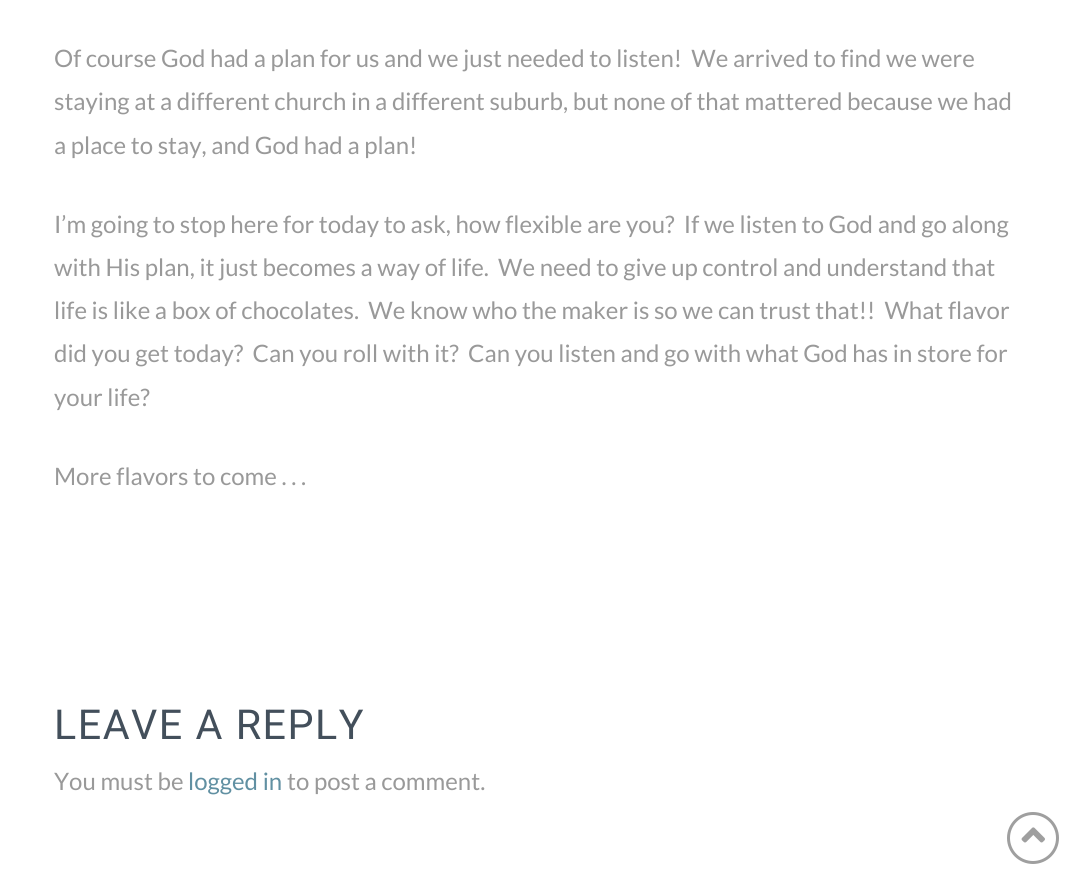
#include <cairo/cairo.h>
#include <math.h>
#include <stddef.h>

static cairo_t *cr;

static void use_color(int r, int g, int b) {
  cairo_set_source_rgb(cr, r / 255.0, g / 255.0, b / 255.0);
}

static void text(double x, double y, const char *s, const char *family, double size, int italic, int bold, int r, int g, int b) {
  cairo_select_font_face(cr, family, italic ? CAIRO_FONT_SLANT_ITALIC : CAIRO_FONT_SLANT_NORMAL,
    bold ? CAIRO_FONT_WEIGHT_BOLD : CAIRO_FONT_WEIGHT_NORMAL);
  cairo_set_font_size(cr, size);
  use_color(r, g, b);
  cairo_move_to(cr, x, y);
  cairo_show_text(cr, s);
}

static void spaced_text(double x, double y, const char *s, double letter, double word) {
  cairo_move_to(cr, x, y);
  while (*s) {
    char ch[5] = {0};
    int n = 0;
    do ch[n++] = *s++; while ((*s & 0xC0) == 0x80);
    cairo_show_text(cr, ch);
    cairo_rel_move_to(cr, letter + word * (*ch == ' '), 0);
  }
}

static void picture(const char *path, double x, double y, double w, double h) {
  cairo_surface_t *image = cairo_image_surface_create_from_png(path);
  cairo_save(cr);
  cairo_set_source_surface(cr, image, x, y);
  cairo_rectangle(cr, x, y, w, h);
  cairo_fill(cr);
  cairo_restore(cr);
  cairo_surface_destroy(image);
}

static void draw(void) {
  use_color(255, 255, 255);
  cairo_paint(cr);
  cairo_arc(cr, 1033, 838, 24.5, 0, 2 * M_PI);
  use_color(159, 159, 159);
  cairo_set_line_width(cr, 3);
  cairo_stroke(cr);
  picture("img_01.png", 1021, 827, 24, 16);
  text(54, 67, "Of course God had a plan for us and we just needed to listen!  We arrived to find we were", "Lato", 24, 0, 0, 153, 153, 153);
  text(54, 110, "staying at a different church in a different suburb, but none of that mattered because we had", "Lato", 24, 0, 0, 153, 153, 153);
  text(54, 154, "a place to stay, and God had a plan!", "Lato", 24, 0, 0, 153, 153, 153);
  text(54, 233, "I’m going to stop here for today to ask, how flexible are you?  If we listen to God and go along", "Lato", 24, 0, 0, 153, 153, 153);
  text(54, 276, "with His plan, it just becomes a way of life.  We need to give up control and understand that", "Lato", 24, 0, 0, 153, 153, 153);
  text(54, 319, "life is like a box of chocolates.  We know who the maker is so we can trust that!!  What flavor", "Lato", 24, 0, 0, 153, 153, 153);
  text(54, 362, "did you get today?  Can you roll with it?  Can you listen and go with what God has in store for", "Lato", 24, 0, 0, 153, 153, 153);
  text(54, 406, "your life?", "Lato", 24, 0, 0, 153, 153, 153);
  text(54, 485, "More flavors to come . . .", "Lato", 24, 0, 0, 153, 153, 153);
  cairo_select_font_face(cr, "Roboto", CAIRO_FONT_SLANT_NORMAL, CAIRO_FONT_WEIGHT_NORMAL);
  cairo_set_font_size(cr, 41.25);
  use_color(67, 79, 91);
  spaced_text(54, 739, "LEAVE A REPLY", 1.5, 0);
  text(54, 790, "You must be", "Lato", 24, 0, 0, 153, 153, 153);
  text(188, 790, "logged in", "Lato", 24, 0, 0, 97, 144, 162);
  text(287, 790, "to post a comment.", "Lato", 24, 0, 0, 153, 153, 153);
}

int main(void) {
  cairo_surface_t *surface = cairo_image_surface_create(CAIRO_FORMAT_RGB24, 1073, 878);
  cr = cairo_create(surface);
  cairo_font_options_t *options = cairo_font_options_create();
  cairo_font_options_set_hint_metrics(options, CAIRO_HINT_METRICS_OFF);
  cairo_font_options_set_hint_style(options, CAIRO_HINT_STYLE_NONE);
  cairo_set_font_options(cr, options);
  cairo_set_miter_limit(cr, 4);
  draw();
  cairo_surface_write_to_png(surface, "out.png");
  cairo_font_options_destroy(options);
  cairo_destroy(cr);
  cairo_surface_destroy(surface);
  return 0;
}
